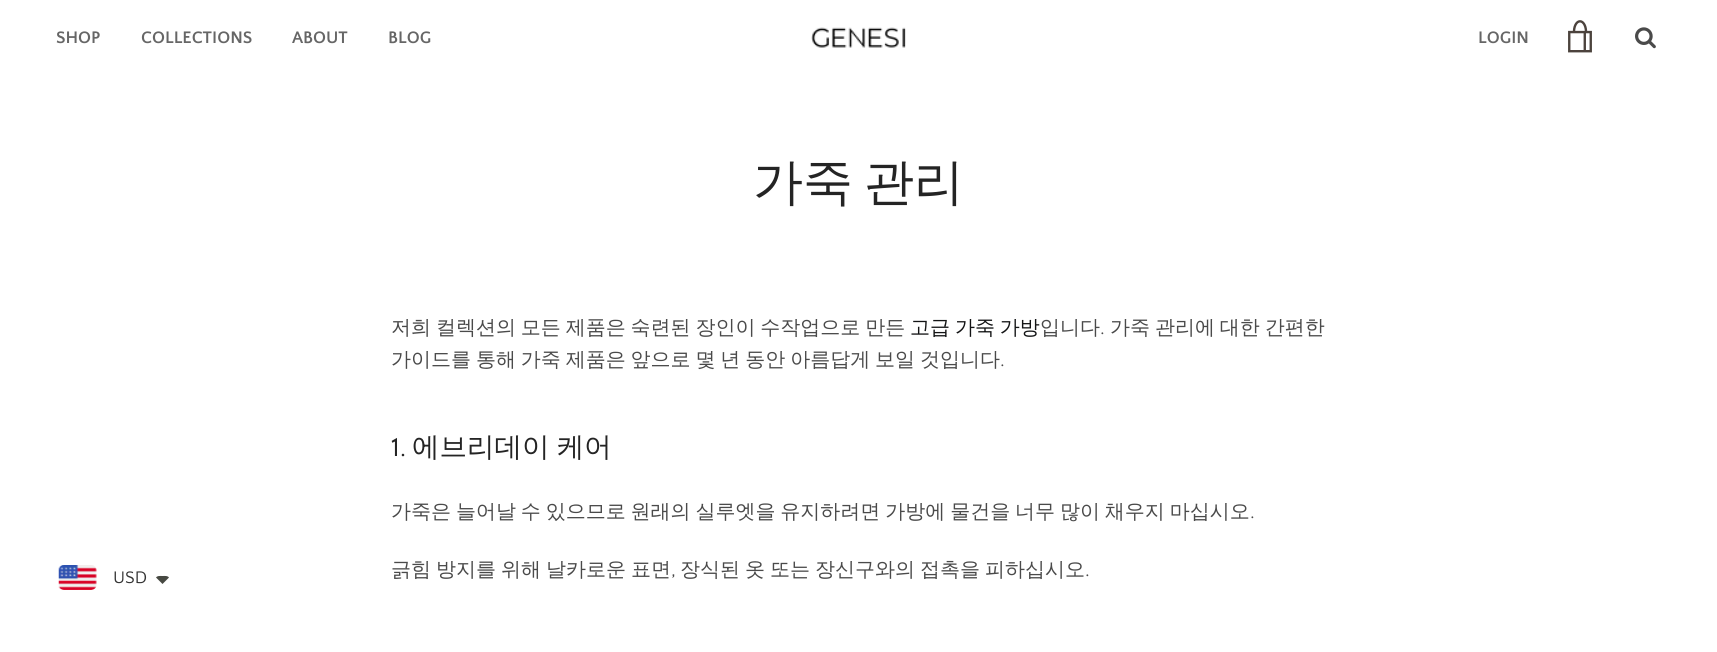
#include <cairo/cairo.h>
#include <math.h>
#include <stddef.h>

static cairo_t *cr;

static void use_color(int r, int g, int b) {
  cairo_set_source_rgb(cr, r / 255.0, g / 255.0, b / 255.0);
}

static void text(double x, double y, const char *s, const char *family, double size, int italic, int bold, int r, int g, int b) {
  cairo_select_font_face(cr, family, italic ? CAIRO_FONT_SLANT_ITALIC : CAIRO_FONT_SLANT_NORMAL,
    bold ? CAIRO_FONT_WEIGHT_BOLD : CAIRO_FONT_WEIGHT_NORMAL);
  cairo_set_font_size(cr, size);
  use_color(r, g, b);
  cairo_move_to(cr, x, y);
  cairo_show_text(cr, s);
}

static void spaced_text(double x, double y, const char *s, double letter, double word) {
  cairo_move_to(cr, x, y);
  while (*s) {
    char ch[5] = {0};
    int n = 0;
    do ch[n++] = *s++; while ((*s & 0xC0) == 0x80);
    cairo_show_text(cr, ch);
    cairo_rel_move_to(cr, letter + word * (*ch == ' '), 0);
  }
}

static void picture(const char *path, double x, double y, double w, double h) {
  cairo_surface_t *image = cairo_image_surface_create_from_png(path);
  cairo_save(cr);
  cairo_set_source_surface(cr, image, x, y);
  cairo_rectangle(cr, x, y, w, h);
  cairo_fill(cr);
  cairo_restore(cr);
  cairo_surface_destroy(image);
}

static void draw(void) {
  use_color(255, 255, 255);
  cairo_paint(cr);
  picture("img_01.png", 811, 27, 95, 21);
  picture("img_02.png", 1568, 20, 24, 33);
  picture("img_03.png", 1635, 27, 21, 22);
  picture("img_04.png", 58, 565, 39, 25);
  use_color(71, 73, 66);
  cairo_new_path(cr);
  cairo_move_to(cr, 156, 577.5);
  cairo_curve_to(cr, 157.5, 575.5, 160.5, 576, 162.5, 576);
  cairo_curve_to(cr, 164.5, 576, 167.5, 575.5, 169, 577.5);
  cairo_line_to(cr, 162.5, 584);
  cairo_close_path(cr);
  cairo_fill(cr);
  text(56, 43, "SHOP", "Quattrocento Sans", 17.5, 0, 1, 102, 102, 102);
  text(141, 43, "COLLECTIONS", "Quattrocento Sans", 17.5, 0, 1, 102, 102, 102);
  text(292, 43, "ABOUT", "Quattrocento Sans", 17.5, 0, 1, 102, 102, 102);
  text(388, 43, "BLOG", "Quattrocento Sans", 17.5, 0, 1, 102, 102, 102);
  text(1478, 43, "LOGIN", "Quattrocento Sans", 17.5, 0, 1, 102, 102, 102);
  text(113, 583, "USD", "Quattrocento Sans", 17.5, 0, 0, 51, 51, 51);
  cairo_select_font_face(cr, "WenQuanYi Zen Hei Medium", CAIRO_FONT_SLANT_NORMAL, CAIRO_FONT_WEIGHT_NORMAL);
  cairo_set_font_size(cr, 50);
  use_color(36, 36, 36);
  spaced_text(753, 199, "가죽 관리", 0, -4);
  cairo_set_font_size(cr, 20);
  use_color(74, 74, 74);
  spaced_text(391, 334, "저희 컬렉션의 모든 제품은 숙련된 장인이 수작업으로 만든", 0, -1.1);
  use_color(19, 20, 21);
  spaced_text(910, 334, "고급 가죽 가방", 0, -1.1);
  text(1040, 334, "입니다", "WenQuanYi Zen Hei Medium", 20, 0, 0, 74, 74, 74);
  text(1100, 334, ".", "Quattrocento Sans", 20, 0, 0, 74, 74, 74);
  cairo_select_font_face(cr, "WenQuanYi Zen Hei Medium", CAIRO_FONT_SLANT_NORMAL, CAIRO_FONT_WEIGHT_NORMAL);
  spaced_text(1110, 334, "가죽 관리에 대한 간편한", 0, -1.1);
  spaced_text(391, 366, "가이드를 통해 가죽 제품은 앞으로 몇 년 동안 아름답게 보일 것입니다", 0, -1.1);
  text(1000, 366, ".", "Quattrocento Sans", 20, 0, 0, 74, 74, 74);
  text(391, 456, "1.", "Quattrocento Sans", 27.5, 0, 0, 36, 36, 36);
  cairo_select_font_face(cr, "WenQuanYi Zen Hei Medium", CAIRO_FONT_SLANT_NORMAL, CAIRO_FONT_WEIGHT_NORMAL);
  spaced_text(412, 456, "에브리데이 케어", 0, -1);
  cairo_set_font_size(cr, 20);
  use_color(74, 74, 74);
  spaced_text(391, 518, "가죽은 늘어날 수 있으므로 원래의 실루엣을 유지하려면 가방에 물건을 너무 많이 채우지 마십시오", 0, -1.1);
  text(1250, 518, ".", "Quattrocento Sans", 20, 0, 0, 74, 74, 74);
  cairo_select_font_face(cr, "WenQuanYi Zen Hei Medium", CAIRO_FONT_SLANT_NORMAL, CAIRO_FONT_WEIGHT_NORMAL);
  spaced_text(391, 576, "긁힘 방지를 위해 날카로운 표면", 0, -1);
  text(671, 576, ",", "Quattrocento Sans", 20, 0, 0, 74, 74, 74);
  cairo_select_font_face(cr, "WenQuanYi Zen Hei Medium", CAIRO_FONT_SLANT_NORMAL, CAIRO_FONT_WEIGHT_NORMAL);
  spaced_text(680, 576, "장식된 옷 또는 장신구와의 접촉을 피하십시오", 0, -1);
  text(1085, 576, ".", "Quattrocento Sans", 20, 0, 0, 74, 74, 74);
}

int main(void) {
  cairo_surface_t *surface = cairo_image_surface_create(CAIRO_FORMAT_RGB24, 1717, 652);
  cr = cairo_create(surface);
  cairo_font_options_t *options = cairo_font_options_create();
  cairo_font_options_set_hint_metrics(options, CAIRO_HINT_METRICS_OFF);
  cairo_font_options_set_hint_style(options, CAIRO_HINT_STYLE_NONE);
  cairo_set_font_options(cr, options);
  cairo_set_miter_limit(cr, 4);
  draw();
  cairo_surface_write_to_png(surface, "out.png");
  cairo_font_options_destroy(options);
  cairo_destroy(cr);
  cairo_surface_destroy(surface);
  return 0;
}
